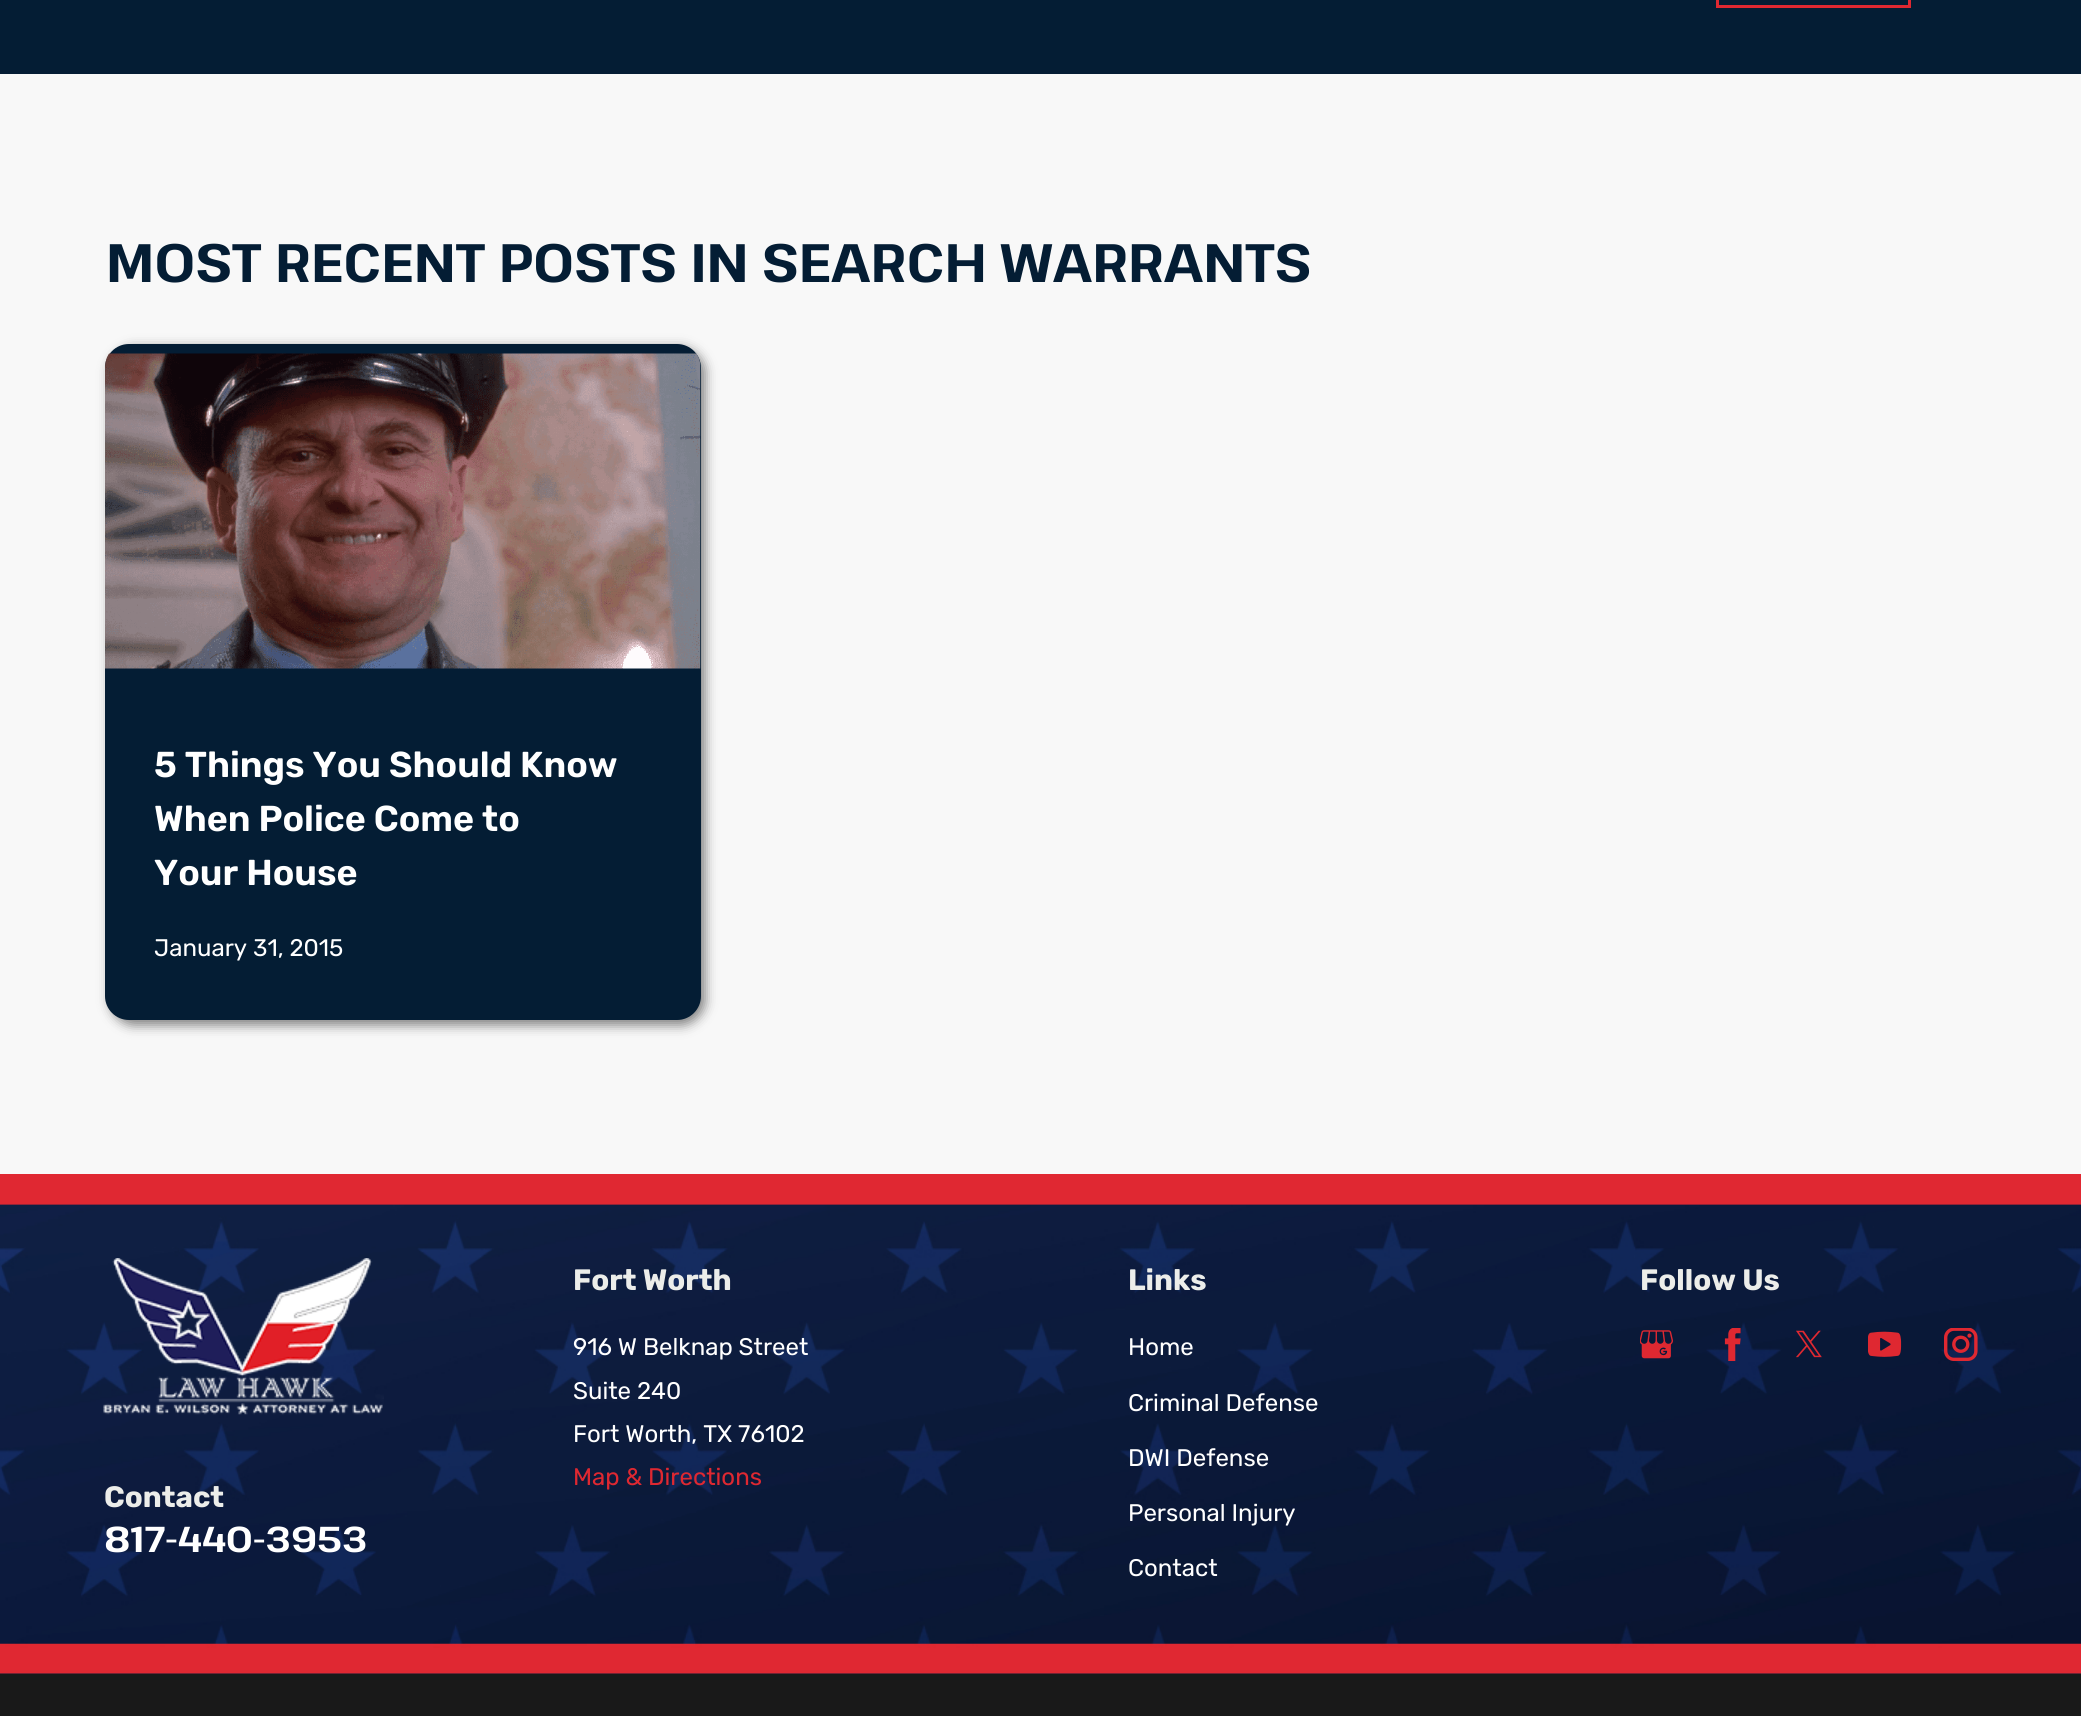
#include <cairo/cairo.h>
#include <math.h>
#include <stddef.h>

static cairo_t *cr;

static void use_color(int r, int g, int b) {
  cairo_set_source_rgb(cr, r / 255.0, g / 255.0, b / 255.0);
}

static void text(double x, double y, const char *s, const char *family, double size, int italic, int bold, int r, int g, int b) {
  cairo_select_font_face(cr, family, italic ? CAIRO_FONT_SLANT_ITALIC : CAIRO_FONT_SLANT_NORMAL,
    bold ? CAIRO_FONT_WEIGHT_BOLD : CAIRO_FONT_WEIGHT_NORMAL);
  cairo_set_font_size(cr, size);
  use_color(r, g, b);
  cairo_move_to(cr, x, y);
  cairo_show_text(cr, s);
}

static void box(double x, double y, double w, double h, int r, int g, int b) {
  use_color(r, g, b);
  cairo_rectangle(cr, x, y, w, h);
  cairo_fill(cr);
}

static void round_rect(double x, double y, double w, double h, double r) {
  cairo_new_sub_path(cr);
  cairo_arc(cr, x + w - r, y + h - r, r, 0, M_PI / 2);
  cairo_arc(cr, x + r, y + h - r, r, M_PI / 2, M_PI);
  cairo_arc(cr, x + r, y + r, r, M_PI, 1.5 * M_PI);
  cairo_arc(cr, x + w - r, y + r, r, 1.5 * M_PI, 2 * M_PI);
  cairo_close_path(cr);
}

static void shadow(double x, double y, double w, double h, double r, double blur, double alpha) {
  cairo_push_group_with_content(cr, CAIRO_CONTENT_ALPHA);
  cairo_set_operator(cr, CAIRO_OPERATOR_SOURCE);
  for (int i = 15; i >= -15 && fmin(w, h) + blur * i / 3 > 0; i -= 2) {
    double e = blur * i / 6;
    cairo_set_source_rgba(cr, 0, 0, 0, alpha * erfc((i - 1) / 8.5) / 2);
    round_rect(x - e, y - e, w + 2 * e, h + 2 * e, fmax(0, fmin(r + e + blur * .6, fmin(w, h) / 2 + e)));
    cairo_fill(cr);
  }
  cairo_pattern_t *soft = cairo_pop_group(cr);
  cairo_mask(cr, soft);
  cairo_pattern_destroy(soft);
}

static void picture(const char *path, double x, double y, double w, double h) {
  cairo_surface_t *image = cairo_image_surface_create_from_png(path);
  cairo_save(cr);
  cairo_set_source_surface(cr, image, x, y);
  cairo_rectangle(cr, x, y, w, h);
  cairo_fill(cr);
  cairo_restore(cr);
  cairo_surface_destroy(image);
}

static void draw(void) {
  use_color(248, 248, 248);
  cairo_paint(cr);
  box(0, 0, 2081, 74, 4, 29, 52);
  cairo_rectangle(cr, 1717.5, -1.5, 192, 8);
  use_color(223, 40, 49);
  cairo_set_line_width(cr, 3);
  cairo_stroke(cr);
  use_color(0, 0, 0);
  shadow(110, 348, 595, 677, 24, 6, 0.5);
  use_color(4, 29, 52);
  round_rect(105, 344, 596, 676, 24);
  cairo_fill(cr);
  picture("img_01.png", 105, 353, 596, 316);
  box(0, 1673, 2081, 1, 4, 29, 52);
  picture("img_02.png", 0, 1174, 2081, 500);
  picture("img_03.png", 103, 1258, 281, 157);
  picture("img_04.png", 1640, 1330, 33, 29);
  picture("img_05.png", 1724, 1328, 17, 33);
  picture("img_06.png", 1796, 1330, 26, 28);
  picture("img_07.png", 1868, 1331, 34, 26);
  picture("img_08.png", 1944, 1328, 34, 33);
  box(0, 1674, 2081, 42, 25, 25, 25);
  text(106, 282, "MOST RECENT POSTS IN SEARCH WARRANTS", "Pathway Extreme", 54, 0, 1, 4, 29, 52);
  text(154, 777, "5 Things You Should Know", "Rubik SemiBold", 36, 0, 0, 255, 255, 255);
  text(154, 831, "When Police Come to", "Rubik SemiBold", 36, 0, 0, 255, 255, 255);
  text(154, 885, "Your House", "Rubik SemiBold", 36, 0, 0, 255, 255, 255);
  text(154, 956, "January 31, 2015", "Rubik", 24, 0, 0, 255, 255, 255);
  text(104, 1507, "Contact", "Rubik", 29.5, 0, 1, 236, 237, 234);
  text(104, 1552, "817-440-3953", "Pathway Extreme", 36, 0, 1, 255, 255, 255);
  text(573, 1290, "Fort Worth", "Rubik", 29.5, 0, 1, 236, 237, 234);
  text(573, 1355, "916 W Belknap Street", "Rubik", 24, 0, 0, 255, 255, 255);
  text(573, 1399, "Suite 240", "Rubik", 24, 0, 0, 255, 255, 255);
  text(573, 1442, "Fort Worth, TX 76102", "Rubik", 24, 0, 0, 255, 255, 255);
  text(573, 1485, "Map & Directions", "Rubik", 24, 0, 0, 223, 40, 49);
  text(1128, 1290, "Links", "Rubik", 29.5, 0, 1, 236, 237, 234);
  text(1128, 1355, "Home", "Rubik", 24, 0, 0, 255, 255, 255);
  text(1128, 1411, "Criminal Defense", "Rubik", 24, 0, 0, 255, 255, 255);
  text(1128, 1466, "DWI Defense", "Rubik", 24, 0, 0, 255, 255, 255);
  text(1128, 1521, "Personal Injury", "Rubik", 24, 0, 0, 255, 255, 255);
  text(1128, 1576, "Contact", "Rubik", 24, 0, 0, 255, 255, 255);
  text(1640, 1290, "Follow Us", "Rubik", 29.5, 0, 1, 236, 237, 234);
}

int main(void) {
  cairo_surface_t *surface = cairo_image_surface_create(CAIRO_FORMAT_RGB24, 2081, 1716);
  cr = cairo_create(surface);
  cairo_font_options_t *options = cairo_font_options_create();
  cairo_font_options_set_hint_metrics(options, CAIRO_HINT_METRICS_OFF);
  cairo_font_options_set_hint_style(options, CAIRO_HINT_STYLE_NONE);
  cairo_set_font_options(cr, options);
  cairo_set_miter_limit(cr, 4);
  draw();
  cairo_surface_write_to_png(surface, "out.png");
  cairo_font_options_destroy(options);
  cairo_destroy(cr);
  cairo_surface_destroy(surface);
  return 0;
}
